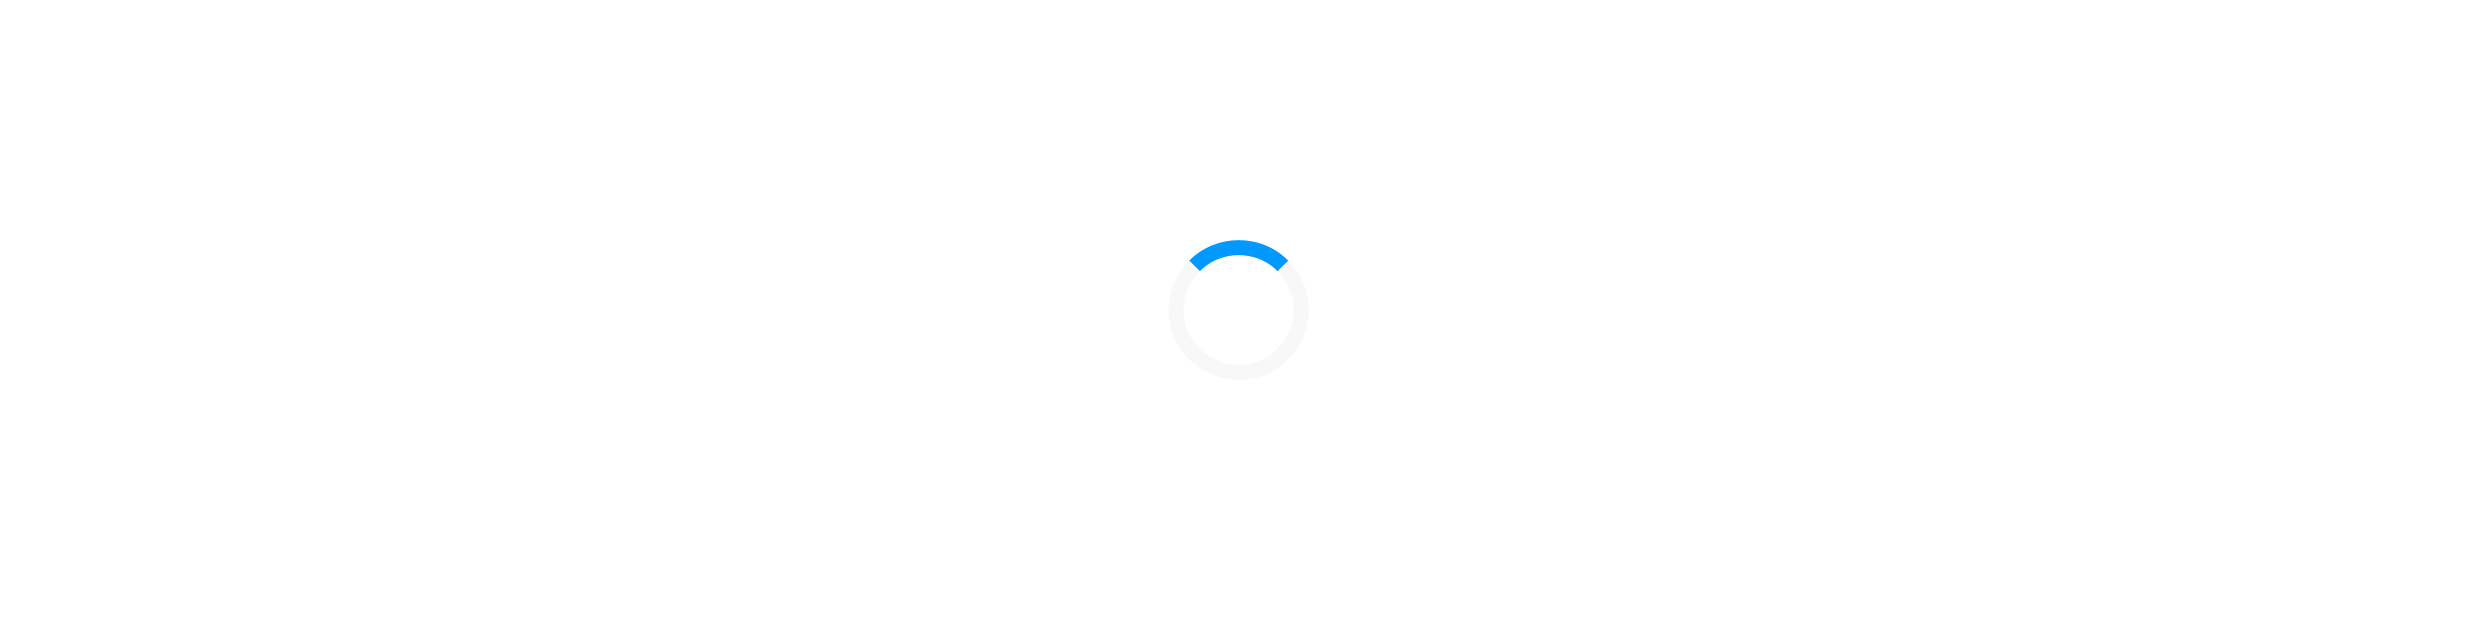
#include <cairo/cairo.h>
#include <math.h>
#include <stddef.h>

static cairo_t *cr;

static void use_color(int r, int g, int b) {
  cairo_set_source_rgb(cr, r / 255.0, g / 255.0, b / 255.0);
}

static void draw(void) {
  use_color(255, 255, 255);
  cairo_paint(cr);
  cairo_new_path(cr);
  cairo_move_to(cr, 1194.5, 266);
  cairo_curve_to(cr, 1218.5, 241.5, 1259, 241.5, 1283, 266);
  use_color(0, 153, 255);
  cairo_set_line_width(cr, 15);
  cairo_stroke(cr);
  cairo_new_path(cr);
  cairo_move_to(cr, 1283, 266);
  cairo_curve_to(cr, 1297.5, 280.5, 1304, 302, 1300, 322.5);
  cairo_curve_to(cr, 1297.5, 334.5, 1291.5, 345.5, 1283, 354);
  cairo_curve_to(cr, 1244, 393.5, 1176, 365, 1176, 310);
  cairo_curve_to(cr, 1176, 293.5, 1183, 277.5, 1194.5, 266);
  use_color(248, 248, 248);
  cairo_stroke(cr);
}

int main(void) {
  cairo_surface_t *surface = cairo_image_surface_create(CAIRO_FORMAT_RGB24, 2477, 619);
  cr = cairo_create(surface);
  cairo_font_options_t *options = cairo_font_options_create();
  cairo_font_options_set_hint_metrics(options, CAIRO_HINT_METRICS_OFF);
  cairo_font_options_set_hint_style(options, CAIRO_HINT_STYLE_NONE);
  cairo_set_font_options(cr, options);
  cairo_set_miter_limit(cr, 4);
  draw();
  cairo_surface_write_to_png(surface, "out.png");
  cairo_font_options_destroy(options);
  cairo_destroy(cr);
  cairo_surface_destroy(surface);
  return 0;
}
